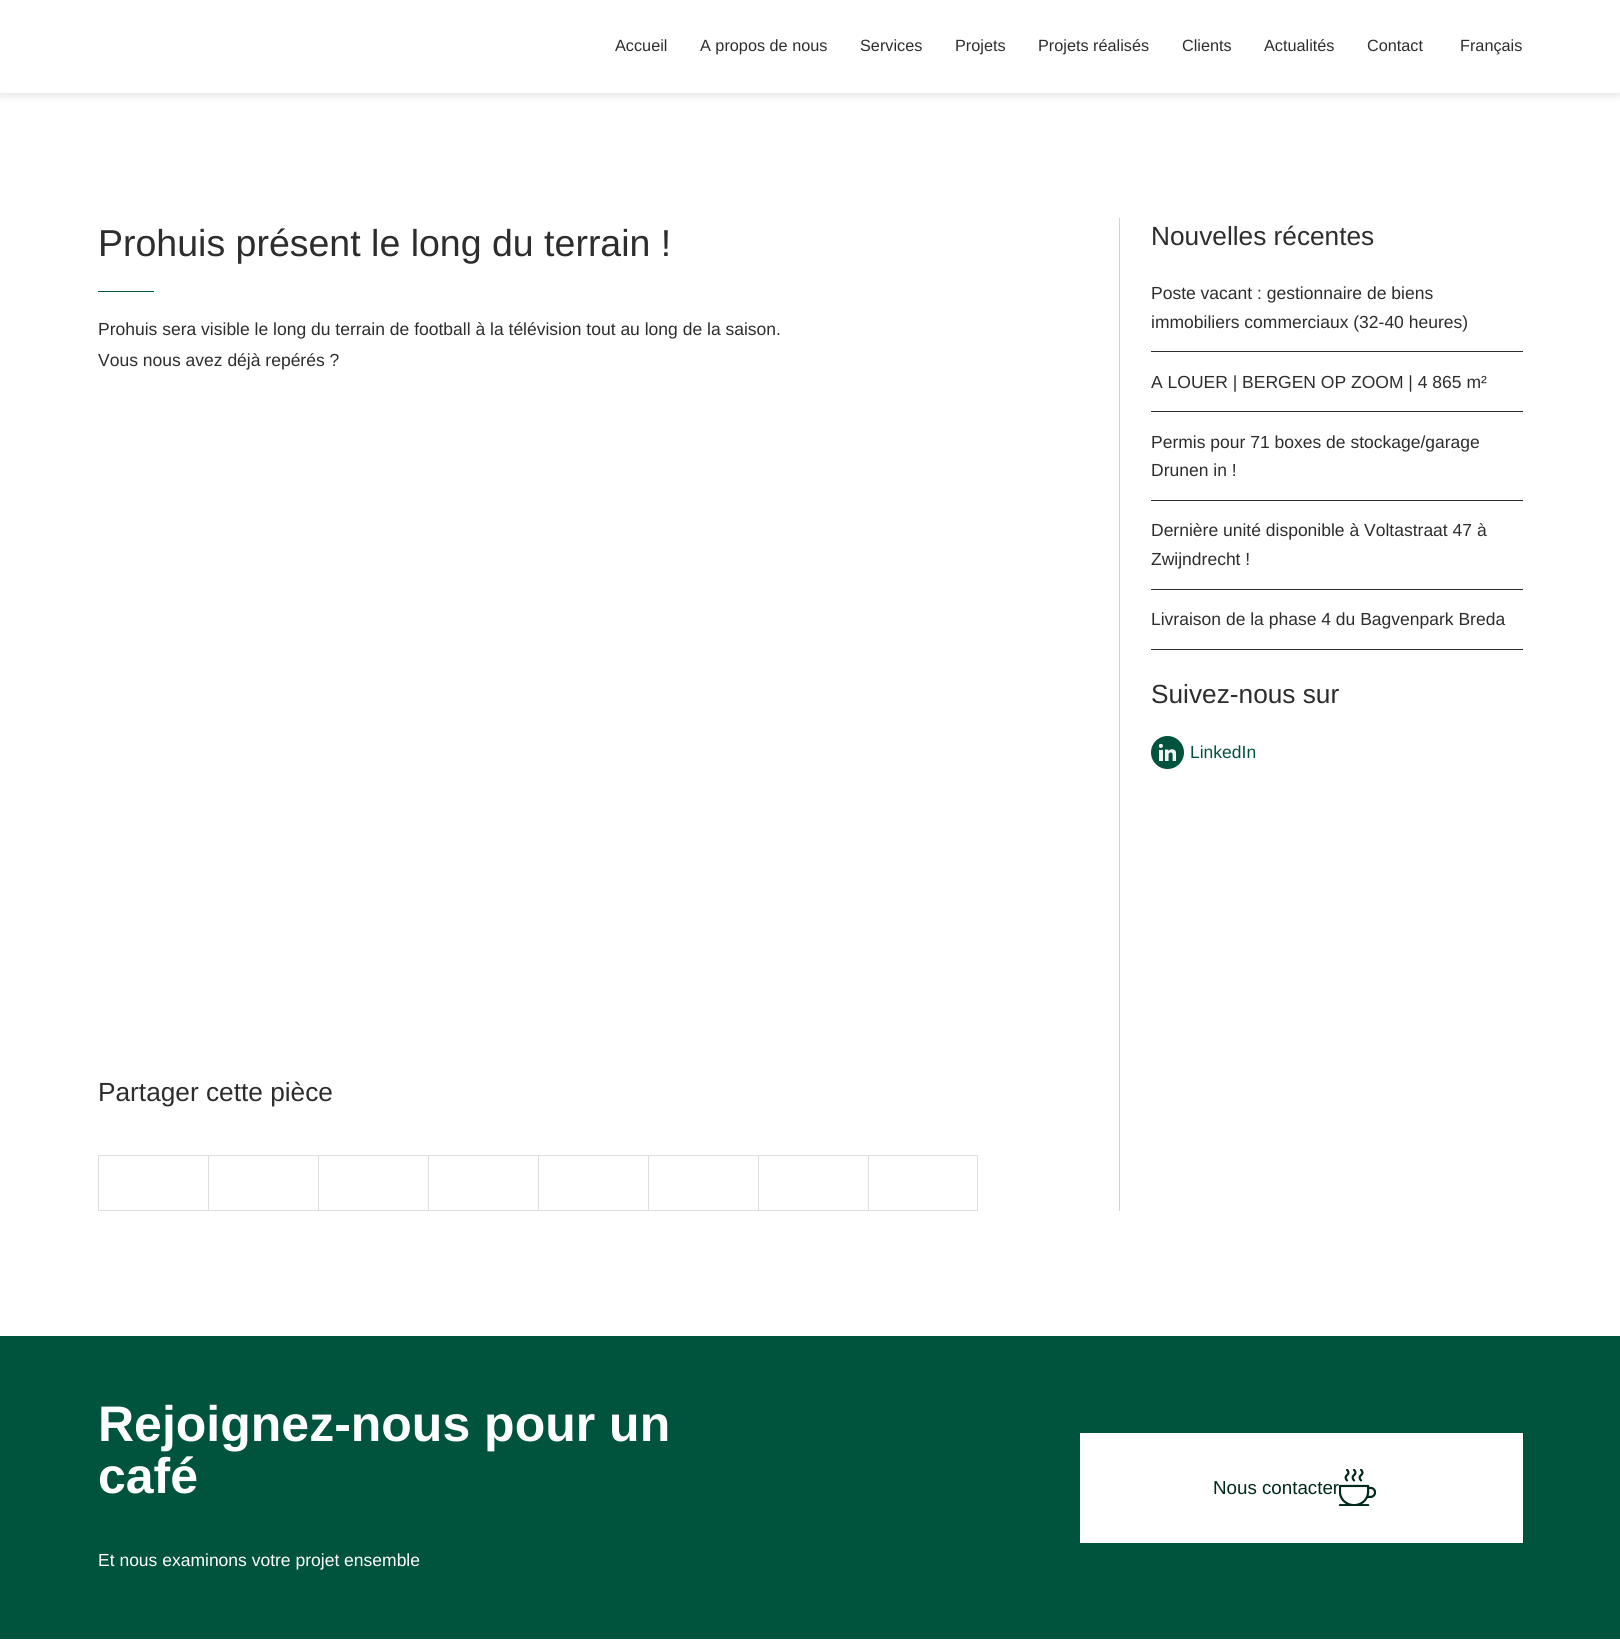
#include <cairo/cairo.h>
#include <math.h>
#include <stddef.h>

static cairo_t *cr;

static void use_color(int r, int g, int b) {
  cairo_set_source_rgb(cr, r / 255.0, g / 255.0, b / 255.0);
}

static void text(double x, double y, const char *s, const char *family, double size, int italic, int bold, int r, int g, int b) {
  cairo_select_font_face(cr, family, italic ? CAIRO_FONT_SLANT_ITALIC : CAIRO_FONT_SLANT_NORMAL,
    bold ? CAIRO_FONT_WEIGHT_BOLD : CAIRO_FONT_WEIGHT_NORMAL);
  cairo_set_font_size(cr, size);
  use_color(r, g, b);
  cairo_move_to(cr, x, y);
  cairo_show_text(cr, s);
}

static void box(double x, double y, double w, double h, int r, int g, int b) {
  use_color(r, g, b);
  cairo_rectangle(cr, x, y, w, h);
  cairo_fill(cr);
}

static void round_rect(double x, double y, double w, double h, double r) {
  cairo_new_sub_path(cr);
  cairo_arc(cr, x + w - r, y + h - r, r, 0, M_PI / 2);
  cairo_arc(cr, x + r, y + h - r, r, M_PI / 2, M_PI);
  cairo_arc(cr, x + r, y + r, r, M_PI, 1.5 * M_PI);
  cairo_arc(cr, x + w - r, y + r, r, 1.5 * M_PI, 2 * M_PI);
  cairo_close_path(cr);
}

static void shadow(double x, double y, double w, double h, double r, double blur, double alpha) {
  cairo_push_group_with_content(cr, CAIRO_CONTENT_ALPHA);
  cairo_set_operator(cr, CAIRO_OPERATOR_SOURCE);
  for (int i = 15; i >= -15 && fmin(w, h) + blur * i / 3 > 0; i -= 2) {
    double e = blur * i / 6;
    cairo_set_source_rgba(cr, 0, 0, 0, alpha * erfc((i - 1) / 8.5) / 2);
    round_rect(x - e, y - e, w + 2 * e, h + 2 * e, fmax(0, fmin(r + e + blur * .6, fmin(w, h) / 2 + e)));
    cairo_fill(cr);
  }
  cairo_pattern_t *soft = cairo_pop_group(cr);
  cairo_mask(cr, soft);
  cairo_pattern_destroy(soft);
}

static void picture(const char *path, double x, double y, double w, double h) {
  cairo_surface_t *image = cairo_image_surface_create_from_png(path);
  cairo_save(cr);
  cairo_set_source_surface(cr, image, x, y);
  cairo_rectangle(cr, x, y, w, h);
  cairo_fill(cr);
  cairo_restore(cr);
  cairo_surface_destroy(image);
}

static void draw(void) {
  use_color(255, 255, 255);
  cairo_paint(cr);
  use_color(0, 0, 0);
  shadow(0, 4, 1620, 92, 0, 4, 0.1);
  box(0, 0, 1620, 93, 255, 255, 255);
  box(98, 291, 56, 1, 0, 83, 61);
  box(98, 1155, 770, 1, 222, 222, 222);
  box(98, 1210, 770, 1, 222, 222, 222);
  box(98, 1155, 1, 56, 222, 222, 222);
  box(208, 1155, 1, 56, 222, 222, 222);
  box(318, 1155, 1, 56, 222, 222, 222);
  box(428, 1155, 1, 56, 222, 222, 222);
  box(538, 1155, 1, 56, 222, 222, 222);
  box(648, 1155, 1, 56, 222, 222, 222);
  box(758, 1155, 1, 56, 222, 222, 222);
  cairo_rectangle(cr, 868.5, 1155.5, 109, 55);
  cairo_set_line_width(cr, 1);
  cairo_stroke(cr);
  box(1119, 218, 1, 993, 209, 209, 209);
  box(1151, 351, 372, 1, 45, 45, 45);
  box(1151, 411, 372, 1, 45, 45, 45);
  box(1151, 500, 372, 1, 45, 45, 45);
  box(1151, 589, 372, 1, 45, 45, 45);
  box(1151, 649, 372, 1, 45, 45, 45);
  use_color(0, 83, 61);
  cairo_arc(cr, 1167.5, 752.5, 16.5, 0, 2 * M_PI);
  cairo_fill(cr);
  picture("img_01.png", 1159, 744, 17, 17);
  box(0, 1336, 1620, 303, 0, 83, 61);
  box(1080, 1433, 443, 110, 255, 255, 255);
  picture("img_02.png", 1339, 1469, 37, 37);
  text(615, 51, "Accueil", "Liberation Sans", 16.25, 0, 0, 45, 45, 45);
  text(700, 51, "A propos de nous", "Liberation Sans", 16.25, 0, 0, 45, 45, 45);
  text(860, 51, "Services", "Liberation Sans", 16.25, 0, 0, 45, 45, 45);
  text(955, 51, "Projets", "Liberation Sans", 16.25, 0, 0, 45, 45, 45);
  text(1038, 51, "Projets réalisés", "Liberation Sans", 16.25, 0, 0, 45, 45, 45);
  text(1182, 51, "Clients", "Liberation Sans", 16.25, 0, 0, 45, 45, 45);
  text(1264, 51, "Actualités", "Liberation Sans", 16.25, 0, 0, 45, 45, 45);
  text(1367, 51, "Contact", "Liberation Sans", 16.25, 0, 0, 45, 45, 45);
  text(1460, 51, "Français", "Liberation Sans", 16.25, 0, 0, 45, 45, 45);
  text(98, 256, "Prohuis présent le long du terrain !", "Liberation Sans", 37.5, 0, 0, 45, 45, 45);
  text(98, 335, "Prohuis sera visible le long du terrain de football à la télévision tout au long de la saison.", "Liberation Sans", 17.5, 0, 0, 45, 45, 45);
  text(98, 366, "Vous nous avez déjà repérés ?", "Liberation Sans", 17.5, 0, 0, 45, 45, 45);
  text(98, 1101, "Partager cette pièce", "Liberation Sans", 26.25, 0, 0, 45, 45, 45);
  text(1151, 245, "Nouvelles récentes", "Liberation Sans", 26.25, 0, 0, 45, 45, 45);
  text(1151, 299, "Poste vacant : gestionnaire de biens", "Liberation Sans", 17.5, 0, 0, 45, 45, 45);
  text(1151, 328, "immobiliers commerciaux (32-40 heures)", "Liberation Sans", 17.5, 0, 0, 45, 45, 45);
  text(1151, 388, "A LOUER | BERGEN OP ZOOM | 4 865 m²", "Liberation Sans", 17.5, 0, 0, 45, 45, 45);
  text(1151, 448, "Permis pour 71 boxes de stockage/garage", "Liberation Sans", 17.5, 0, 0, 45, 45, 45);
  text(1151, 476, "Drunen in !", "Liberation Sans", 17.5, 0, 0, 45, 45, 45);
  text(1151, 536, "Dernière unité disponible à Voltastraat 47 à", "Liberation Sans", 17.5, 0, 0, 45, 45, 45);
  text(1151, 565, "Zwijndrecht !", "Liberation Sans", 17.5, 0, 0, 45, 45, 45);
  text(1151, 625, "Livraison de la phase 4 du Bagvenpark Breda", "Liberation Sans", 17.5, 0, 0, 45, 45, 45);
  text(1151, 703, "Suivez-nous sur", "Liberation Sans", 26.25, 0, 0, 45, 45, 45);
  text(1190, 758, "LinkedIn", "Liberation Sans", 17.5, 0, 0, 0, 83, 61);
  text(98, 1441, "Rejoignez-nous pour un", "Liberation Sans", 50, 0, 1, 255, 255, 255);
  text(98, 1493, "café", "Liberation Sans", 50, 0, 1, 255, 255, 255);
  text(98, 1566, "Et nous examinons votre projet ensemble", "Liberation Sans", 17.5, 0, 0, 255, 255, 255);
  text(1213, 1494, "Nous contacter", "Liberation Sans", 18.75, 0, 0, 0, 41, 30);
}

int main(void) {
  cairo_surface_t *surface = cairo_image_surface_create(CAIRO_FORMAT_RGB24, 1620, 1650);
  cr = cairo_create(surface);
  cairo_font_options_t *options = cairo_font_options_create();
  cairo_font_options_set_hint_metrics(options, CAIRO_HINT_METRICS_OFF);
  cairo_font_options_set_hint_style(options, CAIRO_HINT_STYLE_NONE);
  cairo_set_font_options(cr, options);
  cairo_set_miter_limit(cr, 4);
  draw();
  cairo_surface_write_to_png(surface, "out.png");
  cairo_font_options_destroy(options);
  cairo_destroy(cr);
  cairo_surface_destroy(surface);
  return 0;
}
